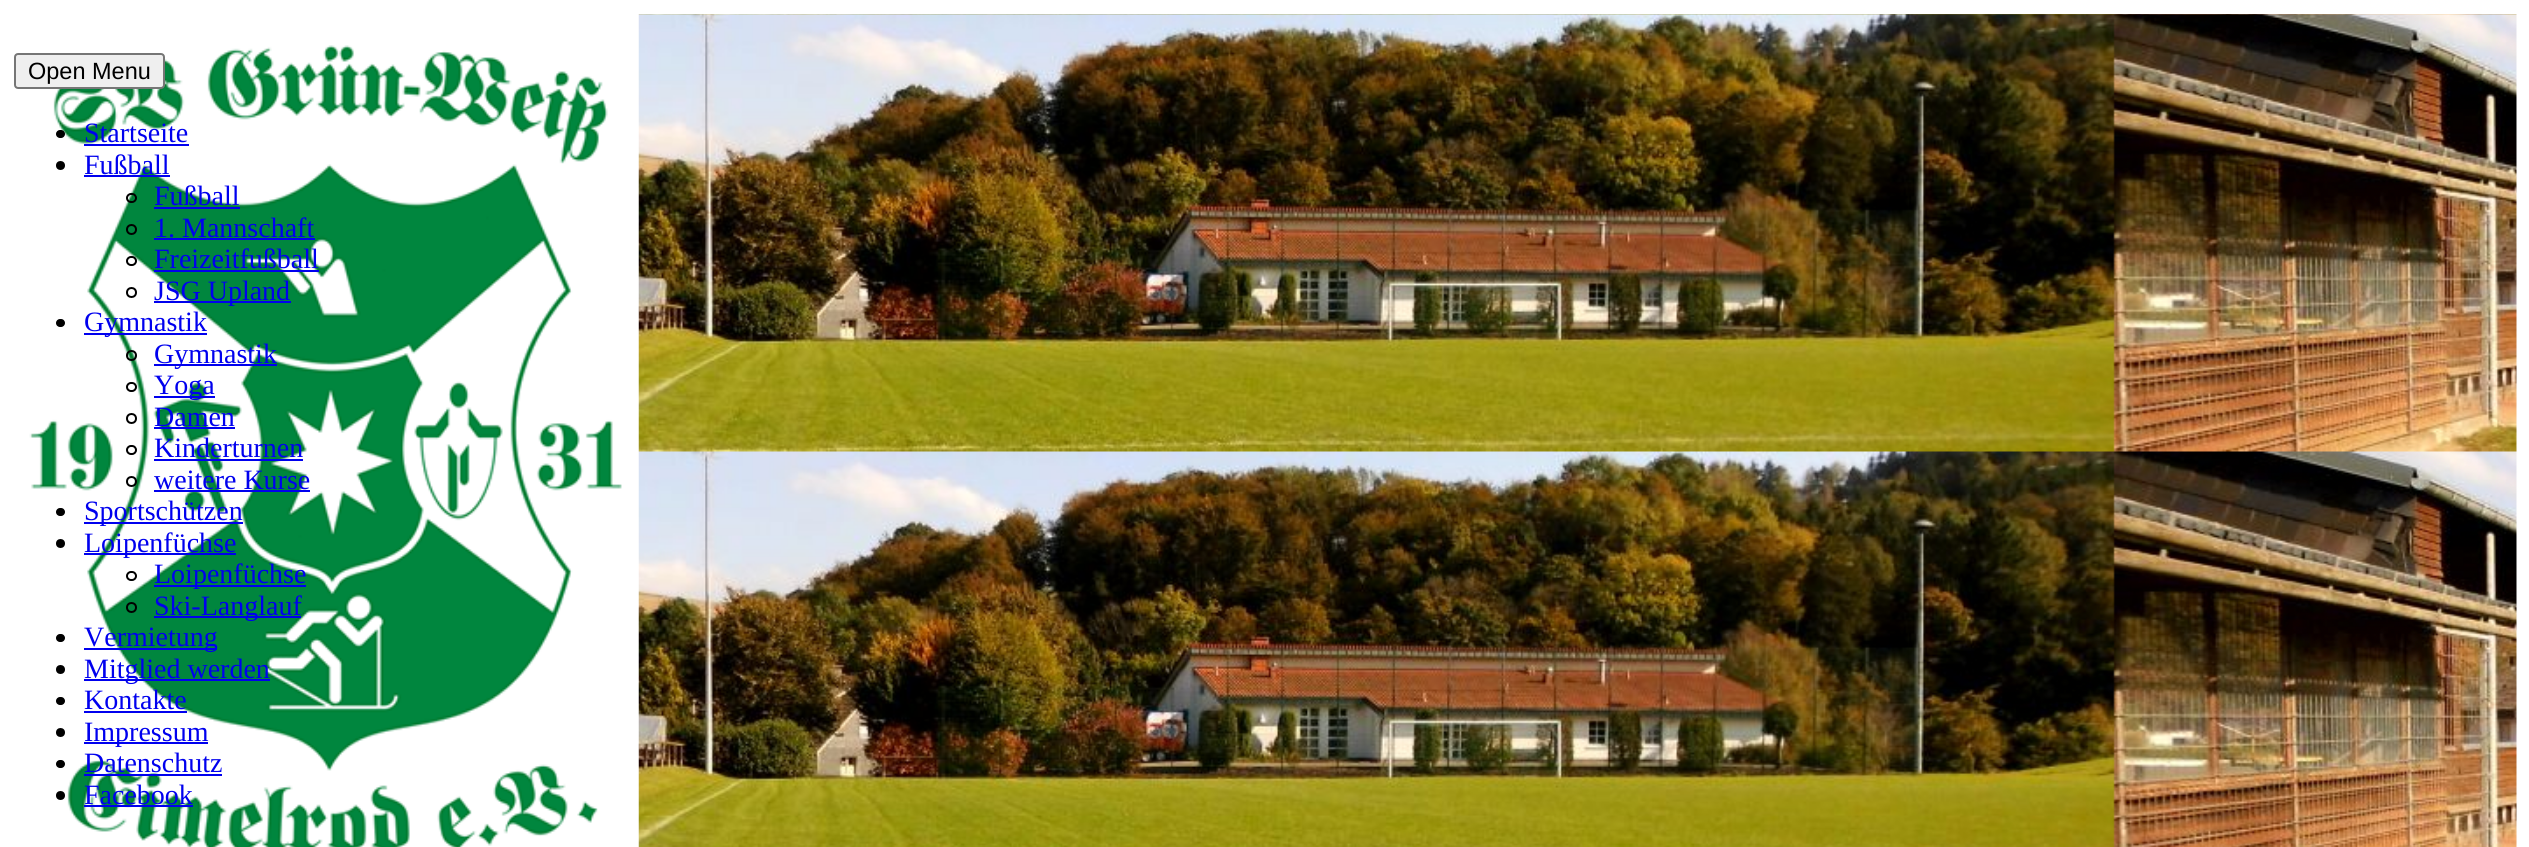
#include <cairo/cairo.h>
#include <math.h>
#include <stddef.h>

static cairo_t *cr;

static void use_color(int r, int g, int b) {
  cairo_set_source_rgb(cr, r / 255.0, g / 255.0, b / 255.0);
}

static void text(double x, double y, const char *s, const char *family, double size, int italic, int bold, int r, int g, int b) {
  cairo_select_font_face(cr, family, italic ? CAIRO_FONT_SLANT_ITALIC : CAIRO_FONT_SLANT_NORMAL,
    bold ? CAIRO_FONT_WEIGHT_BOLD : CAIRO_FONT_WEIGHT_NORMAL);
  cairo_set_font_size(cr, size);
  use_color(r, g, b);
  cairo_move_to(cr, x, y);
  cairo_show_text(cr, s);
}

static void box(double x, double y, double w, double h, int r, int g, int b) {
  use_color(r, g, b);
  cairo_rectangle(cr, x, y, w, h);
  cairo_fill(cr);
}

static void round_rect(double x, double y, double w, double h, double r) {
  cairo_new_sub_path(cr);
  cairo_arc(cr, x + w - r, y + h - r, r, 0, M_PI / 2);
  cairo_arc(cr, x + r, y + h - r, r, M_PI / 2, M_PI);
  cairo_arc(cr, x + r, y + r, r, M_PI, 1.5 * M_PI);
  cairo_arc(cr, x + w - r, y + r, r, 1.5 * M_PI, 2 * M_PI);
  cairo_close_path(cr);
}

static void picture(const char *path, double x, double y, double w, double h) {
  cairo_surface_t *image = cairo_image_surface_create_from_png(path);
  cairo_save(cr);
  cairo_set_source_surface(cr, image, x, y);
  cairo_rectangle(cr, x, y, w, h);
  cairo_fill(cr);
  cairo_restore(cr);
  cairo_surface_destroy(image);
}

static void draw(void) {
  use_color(255, 255, 255);
  cairo_paint(cr);
  picture("img_01.png", 638, 14, 1879, 833);
  picture("img_02.png", 14, 14, 625, 833);
  use_color(239, 239, 239);
  round_rect(15, 54, 149, 34, 3);
  cairo_fill_preserve(cr);
  use_color(118, 118, 118);
  cairo_stroke(cr);
  use_color(0, 0, 0);
  round_rect(56, 130, 9, 8, 4);
  cairo_fill(cr);
  box(84, 144, 105, 2, 0, 0, 238);
  use_color(0, 0, 0);
  cairo_arc(cr, 60.5, 165.5, 4.5, 0, 2 * M_PI);
  cairo_fill(cr);
  box(84, 175, 86, 2, 0, 0, 238);
  round_rect(127, 194, 9, 8, 4);
  use_color(0, 0, 0);
  cairo_stroke(cr);
  box(154, 207, 86, 2, 0, 0, 238);
  cairo_arc(cr, 131.5, 229.5, 4.5, 0, 2 * M_PI);
  use_color(0, 0, 0);
  cairo_stroke(cr);
  box(154, 238, 161, 2, 0, 0, 238);
  round_rect(127, 257, 9, 8, 4);
  use_color(0, 0, 0);
  cairo_stroke(cr);
  box(154, 270, 165, 2, 0, 0, 238);
  cairo_arc(cr, 131.5, 292.5, 4.5, 0, 2 * M_PI);
  use_color(0, 0, 0);
  cairo_stroke(cr);
  box(154, 301, 137, 2, 0, 0, 238);
  use_color(0, 0, 0);
  round_rect(56, 319, 9, 8, 4);
  cairo_fill(cr);
  box(84, 333, 123, 2, 0, 0, 238);
  cairo_arc(cr, 131.5, 355.5, 4.5, 0, 2 * M_PI);
  use_color(0, 0, 0);
  cairo_stroke(cr);
  box(154, 364, 123, 2, 0, 0, 238);
  round_rect(127, 383, 9, 8, 4);
  use_color(0, 0, 0);
  cairo_stroke(cr);
  box(154, 396, 61, 2, 0, 0, 238);
  cairo_arc(cr, 131.5, 418.5, 4.5, 0, 2 * M_PI);
  use_color(0, 0, 0);
  cairo_stroke(cr);
  box(154, 427, 81, 2, 0, 0, 238);
  round_rect(127, 446, 9, 8, 4);
  use_color(0, 0, 0);
  cairo_stroke(cr);
  box(154, 459, 149, 2, 0, 0, 238);
  cairo_arc(cr, 131.5, 481.5, 4.5, 0, 2 * M_PI);
  use_color(0, 0, 0);
  cairo_stroke(cr);
  box(154, 490, 156, 2, 0, 0, 238);
  use_color(0, 0, 0);
  round_rect(56, 508, 9, 8, 4);
  cairo_fill(cr);
  box(84, 522, 159, 2, 0, 0, 238);
  use_color(0, 0, 0);
  cairo_arc(cr, 60.5, 543.5, 4.5, 0, 2 * M_PI);
  cairo_fill(cr);
  box(84, 553, 152, 2, 0, 0, 238);
  round_rect(127, 572, 9, 8, 4);
  use_color(0, 0, 0);
  cairo_stroke(cr);
  box(154, 585, 152, 2, 0, 0, 238);
  cairo_arc(cr, 131.5, 607.5, 4.5, 0, 2 * M_PI);
  use_color(0, 0, 0);
  cairo_stroke(cr);
  box(154, 616, 147, 2, 0, 0, 238);
  use_color(0, 0, 0);
  round_rect(56, 634, 9, 8, 4);
  cairo_fill(cr);
  box(84, 648, 133, 2, 0, 0, 238);
  use_color(0, 0, 0);
  cairo_arc(cr, 60.5, 669.5, 4.5, 0, 2 * M_PI);
  cairo_fill(cr);
  box(84, 679, 186, 2, 0, 0, 238);
  use_color(0, 0, 0);
  round_rect(56, 697, 9, 8, 4);
  cairo_fill(cr);
  box(84, 711, 103, 2, 0, 0, 238);
  use_color(0, 0, 0);
  cairo_arc(cr, 60.5, 732.5, 4.5, 0, 2 * M_PI);
  cairo_fill(cr);
  box(84, 742, 124, 2, 0, 0, 238);
  use_color(0, 0, 0);
  round_rect(56, 760, 9, 8, 4);
  cairo_fill(cr);
  box(84, 774, 138, 2, 0, 0, 238);
  use_color(0, 0, 0);
  cairo_arc(cr, 60.5, 795.5, 4.5, 0, 2 * M_PI);
  cairo_fill(cr);
  box(84, 805, 109, 2, 0, 0, 238);
  text(28, 79, "Open Menu", "Liberation Sans", 23.5, 0, 0, 0, 0, 0);
  text(84, 142, "Startseite", "Liberation Serif", 28, 0, 0, 0, 0, 238);
  text(84, 174, "Fußball", "Liberation Serif", 28, 0, 0, 0, 0, 238);
  text(154, 205, "Fußball", "Liberation Serif", 28, 0, 0, 0, 0, 238);
  text(154, 237, "1. Mannschaft", "Liberation Serif", 28, 0, 0, 0, 0, 238);
  text(154, 268, "Freizeitfußball", "Liberation Serif", 28, 0, 0, 0, 0, 238);
  text(154, 300, "JSG Upland", "Liberation Serif", 28, 0, 0, 0, 0, 238);
  text(84, 331, "Gymnastik", "Liberation Serif", 28, 0, 0, 0, 0, 238);
  text(154, 363, "Gymnastik", "Liberation Serif", 28, 0, 0, 0, 0, 238);
  text(154, 394, "Yoga", "Liberation Serif", 28, 0, 0, 0, 0, 238);
  text(154, 426, "Damen", "Liberation Serif", 28, 0, 0, 0, 0, 238);
  text(154, 457, "Kinderturnen", "Liberation Serif", 28, 0, 0, 0, 0, 238);
  text(154, 489, "weitere Kurse", "Liberation Serif", 28, 0, 0, 0, 0, 238);
  text(84, 520, "Sportschützen", "Liberation Serif", 28, 0, 0, 0, 0, 238);
  text(84, 552, "Loipenfüchse", "Liberation Serif", 28, 0, 0, 0, 0, 238);
  text(154, 583, "Loipenfüchse", "Liberation Serif", 28, 0, 0, 0, 0, 238);
  text(154, 615, "Ski-Langlauf", "Liberation Serif", 28, 0, 0, 0, 0, 238);
  text(84, 646, "Vermietung", "Liberation Serif", 28, 0, 0, 0, 0, 238);
  text(84, 678, "Mitglied werden", "Liberation Serif", 28, 0, 0, 0, 0, 238);
  text(84, 709, "Kontakte", "Liberation Serif", 28, 0, 0, 0, 0, 238);
  text(84, 741, "Impressum", "Liberation Serif", 28, 0, 0, 0, 0, 238);
  text(84, 772, "Datenschutz", "Liberation Serif", 28, 0, 0, 0, 0, 238);
  text(84, 804, "Facebook", "Liberation Serif", 28, 0, 0, 0, 0, 238);
}

int main(void) {
  cairo_surface_t *surface = cairo_image_surface_create(CAIRO_FORMAT_RGB24, 2529, 847);
  cr = cairo_create(surface);
  cairo_font_options_t *options = cairo_font_options_create();
  cairo_font_options_set_hint_metrics(options, CAIRO_HINT_METRICS_OFF);
  cairo_font_options_set_hint_style(options, CAIRO_HINT_STYLE_NONE);
  cairo_set_font_options(cr, options);
  cairo_set_miter_limit(cr, 4);
  draw();
  cairo_surface_write_to_png(surface, "out.png");
  cairo_font_options_destroy(options);
  cairo_destroy(cr);
  cairo_surface_destroy(surface);
  return 0;
}
